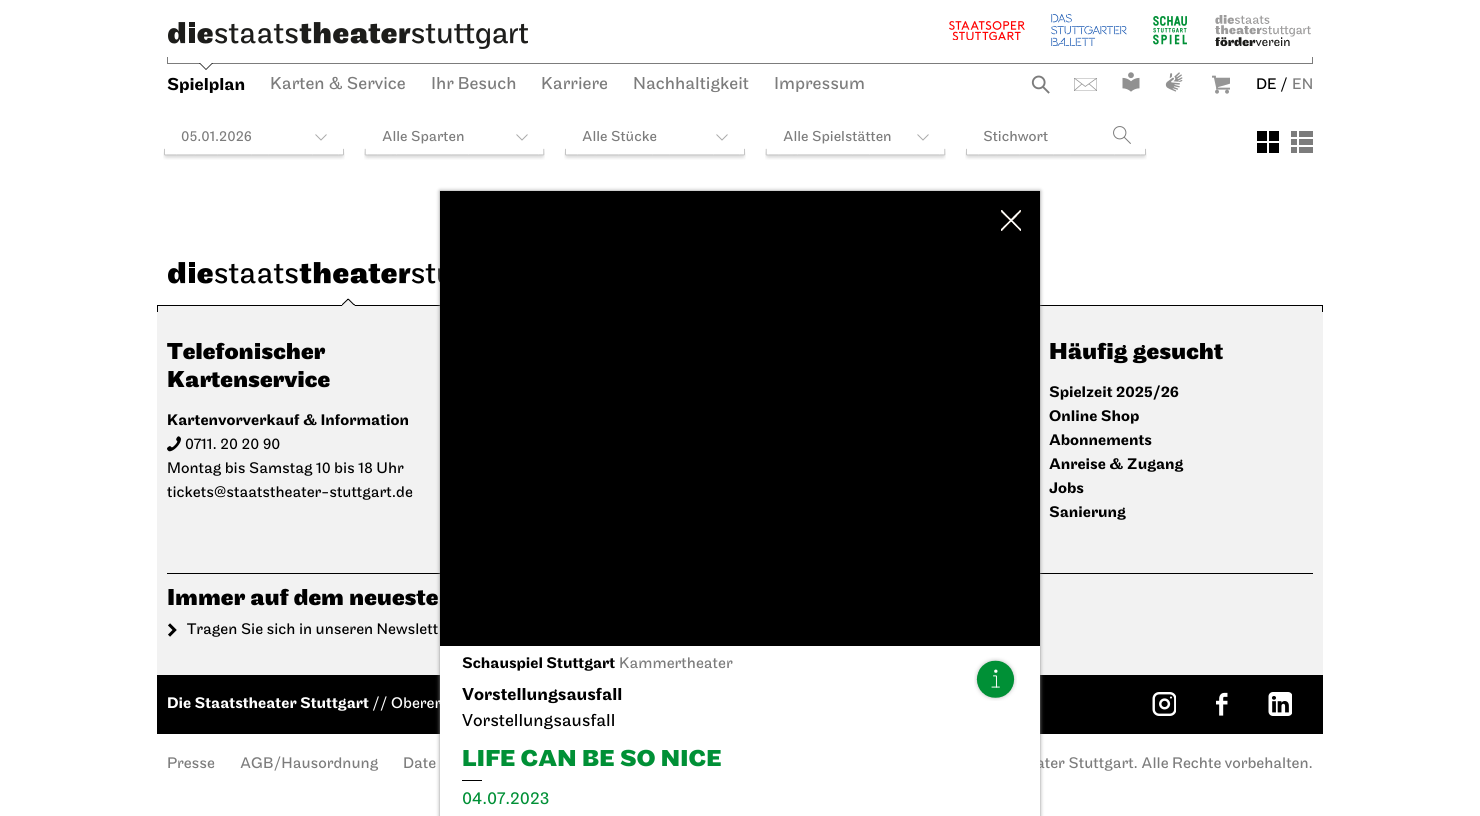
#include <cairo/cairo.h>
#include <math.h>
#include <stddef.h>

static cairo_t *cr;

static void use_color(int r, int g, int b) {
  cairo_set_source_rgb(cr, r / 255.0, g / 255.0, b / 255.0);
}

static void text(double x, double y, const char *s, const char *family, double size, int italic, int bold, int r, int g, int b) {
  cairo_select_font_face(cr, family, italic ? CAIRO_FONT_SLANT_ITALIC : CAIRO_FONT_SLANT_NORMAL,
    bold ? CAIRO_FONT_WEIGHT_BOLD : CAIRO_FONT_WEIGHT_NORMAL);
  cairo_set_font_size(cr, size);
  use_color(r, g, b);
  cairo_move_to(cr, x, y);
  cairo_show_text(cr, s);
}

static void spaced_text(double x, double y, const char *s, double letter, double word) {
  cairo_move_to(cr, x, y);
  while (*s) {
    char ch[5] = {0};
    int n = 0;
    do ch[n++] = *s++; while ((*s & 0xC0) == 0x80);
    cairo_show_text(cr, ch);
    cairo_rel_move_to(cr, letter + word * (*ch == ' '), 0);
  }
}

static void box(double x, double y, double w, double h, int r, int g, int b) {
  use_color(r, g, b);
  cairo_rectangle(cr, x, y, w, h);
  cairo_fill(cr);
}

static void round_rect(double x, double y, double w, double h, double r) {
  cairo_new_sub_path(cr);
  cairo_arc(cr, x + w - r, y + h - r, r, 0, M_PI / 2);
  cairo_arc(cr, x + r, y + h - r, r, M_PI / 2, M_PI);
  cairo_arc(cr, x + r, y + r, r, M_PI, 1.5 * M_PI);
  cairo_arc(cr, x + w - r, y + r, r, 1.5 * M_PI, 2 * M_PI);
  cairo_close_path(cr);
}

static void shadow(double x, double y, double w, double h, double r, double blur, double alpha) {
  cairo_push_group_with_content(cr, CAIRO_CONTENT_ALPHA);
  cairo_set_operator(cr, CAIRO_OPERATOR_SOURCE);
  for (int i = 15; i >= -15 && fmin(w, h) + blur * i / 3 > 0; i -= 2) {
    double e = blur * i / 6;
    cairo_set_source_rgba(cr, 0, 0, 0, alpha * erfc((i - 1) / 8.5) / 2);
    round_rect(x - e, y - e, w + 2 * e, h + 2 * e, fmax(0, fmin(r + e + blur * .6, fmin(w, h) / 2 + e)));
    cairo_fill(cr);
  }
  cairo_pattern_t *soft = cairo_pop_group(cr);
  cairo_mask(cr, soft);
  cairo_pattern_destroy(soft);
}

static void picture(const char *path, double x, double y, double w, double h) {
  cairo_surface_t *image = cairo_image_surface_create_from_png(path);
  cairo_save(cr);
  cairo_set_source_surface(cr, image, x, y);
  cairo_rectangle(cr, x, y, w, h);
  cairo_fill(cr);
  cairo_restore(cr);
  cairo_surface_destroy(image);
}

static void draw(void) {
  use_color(255, 255, 255);
  cairo_paint(cr);
  picture("img_01.png", 168, 22, 360, 27);
  picture("img_02.png", 949, 21, 76, 19);
  picture("img_03.png", 1051, 14, 76, 32);
  picture("img_04.png", 1153, 16, 34, 29);
  picture("img_05.png", 1215, 15, 96, 32);
  box(1312, 57, 1, 7, 124, 124, 124);
  box(167, 63, 1146, 1, 124, 124, 124);
  box(167, 57, 1, 7, 124, 124, 124);
  use_color(0, 0, 0);
  cairo_new_path(cr);
  cairo_move_to(cr, 199, 63);
  cairo_line_to(cr, 213, 63);
  cairo_line_to(cr, 206, 70);
  cairo_close_path(cr);
  cairo_fill(cr);
  use_color(255, 255, 255);
  cairo_new_path(cr);
  cairo_move_to(cr, 200, 63);
  cairo_line_to(cr, 212, 63);
  cairo_line_to(cr, 206, 69);
  cairo_close_path(cr);
  cairo_fill(cr);
  picture("img_06.png", 1031, 75, 19, 19);
  picture("img_07.png", 1074, 78, 23, 13);
  picture("img_08.png", 1122, 72, 18, 20);
  picture("img_09.png", 1165, 72, 18, 20);
  picture("img_10.png", 1212, 75, 18, 19);
  picture("img_11.png", 163, 148, 182, 12);
  cairo_new_path(cr);
  cairo_move_to(cr, 326.5, 134.5);
  cairo_line_to(cr, 321, 140);
  cairo_line_to(cr, 315.5, 134.5);
  use_color(170, 170, 170);
  cairo_set_line_width(cr, 1);
  cairo_stroke(cr);
  picture("img_12.png", 364, 148, 181, 12);
  cairo_new_path(cr);
  cairo_move_to(cr, 527.5, 134.5);
  cairo_line_to(cr, 522, 140);
  cairo_line_to(cr, 516.5, 134.5);
  cairo_stroke(cr);
  picture("img_11.png", 564, 148, 182, 12);
  cairo_new_path(cr);
  cairo_move_to(cr, 727.5, 134.5);
  cairo_line_to(cr, 722, 140);
  cairo_line_to(cr, 716.5, 134.5);
  cairo_stroke(cr);
  picture("img_12.png", 765, 148, 181, 12);
  cairo_new_path(cr);
  cairo_move_to(cr, 928.5, 134.5);
  cairo_line_to(cr, 923, 140);
  cairo_line_to(cr, 917.5, 134.5);
  cairo_stroke(cr);
  picture("img_11.png", 965, 148, 182, 12);
  picture("img_13.png", 1113, 126, 18, 18);
  box(1257, 131, 10, 10, 0, 0, 0);
  box(1257, 143, 10, 10, 0, 0, 0);
  box(1269, 131, 10, 10, 0, 0, 0);
  box(1269, 143, 10, 10, 0, 0, 0);
  picture("img_14.png", 1291, 131, 22, 22);
  picture("img_15.png", 168, 262, 272, 22);
  box(157, 305, 1166, 1, 0, 0, 0);
  picture("img_16.png", 342, 298, 13, 8);
  box(157, 306, 1166, 369, 242, 242, 242);
  box(1322, 305, 1, 7, 0, 0, 0);
  box(157, 305, 1, 7, 0, 0, 0);
  picture("img_17.png", 167, 436, 14, 16);
  box(167, 573, 1146, 1, 0, 0, 0);
  picture("img_18.png", 168, 623, 9, 14);
  box(157, 675, 1166, 59, 0, 0, 0);
  picture("img_19.png", 1152, 692, 24, 24);
  picture("img_20.png", 1216, 692, 12, 24);
  picture("img_21.png", 1268, 692, 24, 24);
  use_color(139, 139, 139);
  shadow(440, 191, 600, 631, 0, 2, 1);
  box(440, 191, 600, 455, 0, 0, 0);
  picture("img_22.png", 1001, 210, 20, 21);
  text(167, 90, "Spielplan", "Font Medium", 18, 0, 0, 0, 0, 0);
  text(270, 89, "Karten & Service", "Font", 18, 0, 0, 124, 124, 124);
  text(431, 89, "Ihr Besuch", "Font", 18, 0, 0, 124, 124, 124);
  text(541, 89, "Karriere", "Font", 18, 0, 0, 124, 124, 124);
  text(633, 89, "Nachhaltigkeit", "Font", 18, 0, 0, 124, 124, 124);
  text(774, 89, "Impressum", "Font", 18, 0, 0, 124, 124, 124);
  text(1256, 89, "DE /", "Font", 16, 0, 0, 0, 0, 0);
  text(1292, 89, "EN", "Font", 16, 0, 0, 124, 124, 124);
  text(181, 141, "05.01.2026", "Font", 15, 0, 0, 124, 124, 124);
  text(382, 141, "Alle Sparten", "Font", 15, 0, 0, 124, 124, 124);
  text(582, 141, "Alle Stücke", "Font", 15, 0, 0, 124, 124, 124);
  text(783, 141, "Alle Spielstätten", "Font", 15, 0, 0, 124, 124, 124);
  text(983, 141, "Stichwort", "Font", 15, 0, 0, 124, 124, 124);
  text(167, 359, "Telefonischer", "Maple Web", 24, 0, 1, 0, 0, 0);
  text(167, 387, "Kartenservice", "Maple Web", 24, 0, 1, 0, 0, 0);
  text(167, 425, "Kartenvorverkauf & Information", "Font Medium", 16, 0, 0, 0, 0, 0);
  text(185, 449, "0711. 20 20 90", "Font", 16, 0, 0, 0, 0, 0);
  text(167, 473, "Montag bis Samstag 10 bis 18 Uhr", "Font", 16, 0, 0, 0, 0, 0);
  text(167, 497, "tickets@staatstheater-stuttgart.de", "Font", 16, 0, 0, 0, 0, 0);
  text(1049, 359, "Häufig gesucht", "Maple Web", 24, 0, 1, 0, 0, 0);
  text(1049, 397, "Spielzeit 2025/26", "Font Medium", 16, 0, 0, 0, 0, 0);
  text(1049, 421, "Online Shop", "Font Medium", 16, 0, 0, 0, 0, 0);
  text(1049, 445, "Abonnements", "Font Medium", 16, 0, 0, 0, 0, 0);
  text(1049, 469, "Anreise & Zugang", "Font Medium", 16, 0, 0, 0, 0, 0);
  text(1049, 493, "Jobs", "Font Medium", 16, 0, 0, 0, 0, 0);
  text(1049, 517, "Sanierung", "Font Medium", 16, 0, 0, 0, 0, 0);
  text(167, 605, "Immer auf dem neueste", "Maple Web", 24, 0, 1, 0, 0, 0);
  text(187, 634, "Tragen Sie sich in unseren Newslett", "Font", 16, 0, 0, 0, 0, 0);
  text(167, 708, "Die Staatstheater Stuttgart", "Font Medium", 16, 0, 0, 255, 255, 255);
  text(372, 708, "// Oberer", "Font", 16, 0, 0, 255, 255, 255);
  text(167, 768, "Presse", "Font", 16, 0, 0, 124, 124, 124);
  text(240, 768, "AGB/Hausordnung", "Font", 16, 0, 0, 124, 124, 124);
  text(403, 768, "Date", "Font", 16, 0, 0, 124, 124, 124);
  text(1036, 768, "ater Stuttgart. Alle Rechte vorbehalten.", "Font", 16, 0, 0, 124, 124, 124);
  box(440, 646, 600, 170, 255, 255, 255);
  text(462, 668, "Schauspiel Stuttgart", "Font Medium", 16, 0, 0, 0, 0, 0);
  text(619, 668, "Kammertheater", "Font", 16, 0, 0, 124, 124, 124);
  text(462, 700, "Vorstellungsausfall", "Font Medium", 18, 0, 0, 0, 0, 0);
  text(462, 726, "Vorstellungsausfall", "Font", 18, 0, 0, 0, 0, 0);
  cairo_select_font_face(cr, "Maple Web", CAIRO_FONT_SLANT_NORMAL, CAIRO_FONT_WEIGHT_BOLD);
  cairo_set_font_size(cr, 24);
  use_color(0, 144, 54);
  spaced_text(462, 766, "LIFE CAN BE SO NICE", 0.25, 0);
  box(462, 780, 20, 1, 0, 0, 0);
  text(462, 804, "04.07.2023", "Font", 18, 0, 0, 0, 144, 54);
  picture("img_23.png", 974, 657, 43, 44);
}

int main(void) {
  cairo_surface_t *surface = cairo_image_surface_create(CAIRO_FORMAT_RGB24, 1480, 816);
  cr = cairo_create(surface);
  cairo_font_options_t *options = cairo_font_options_create();
  cairo_font_options_set_hint_metrics(options, CAIRO_HINT_METRICS_OFF);
  cairo_font_options_set_hint_style(options, CAIRO_HINT_STYLE_NONE);
  cairo_set_font_options(cr, options);
  cairo_set_miter_limit(cr, 4);
  draw();
  cairo_surface_write_to_png(surface, "out.png");
  cairo_font_options_destroy(options);
  cairo_destroy(cr);
  cairo_surface_destroy(surface);
  return 0;
}
